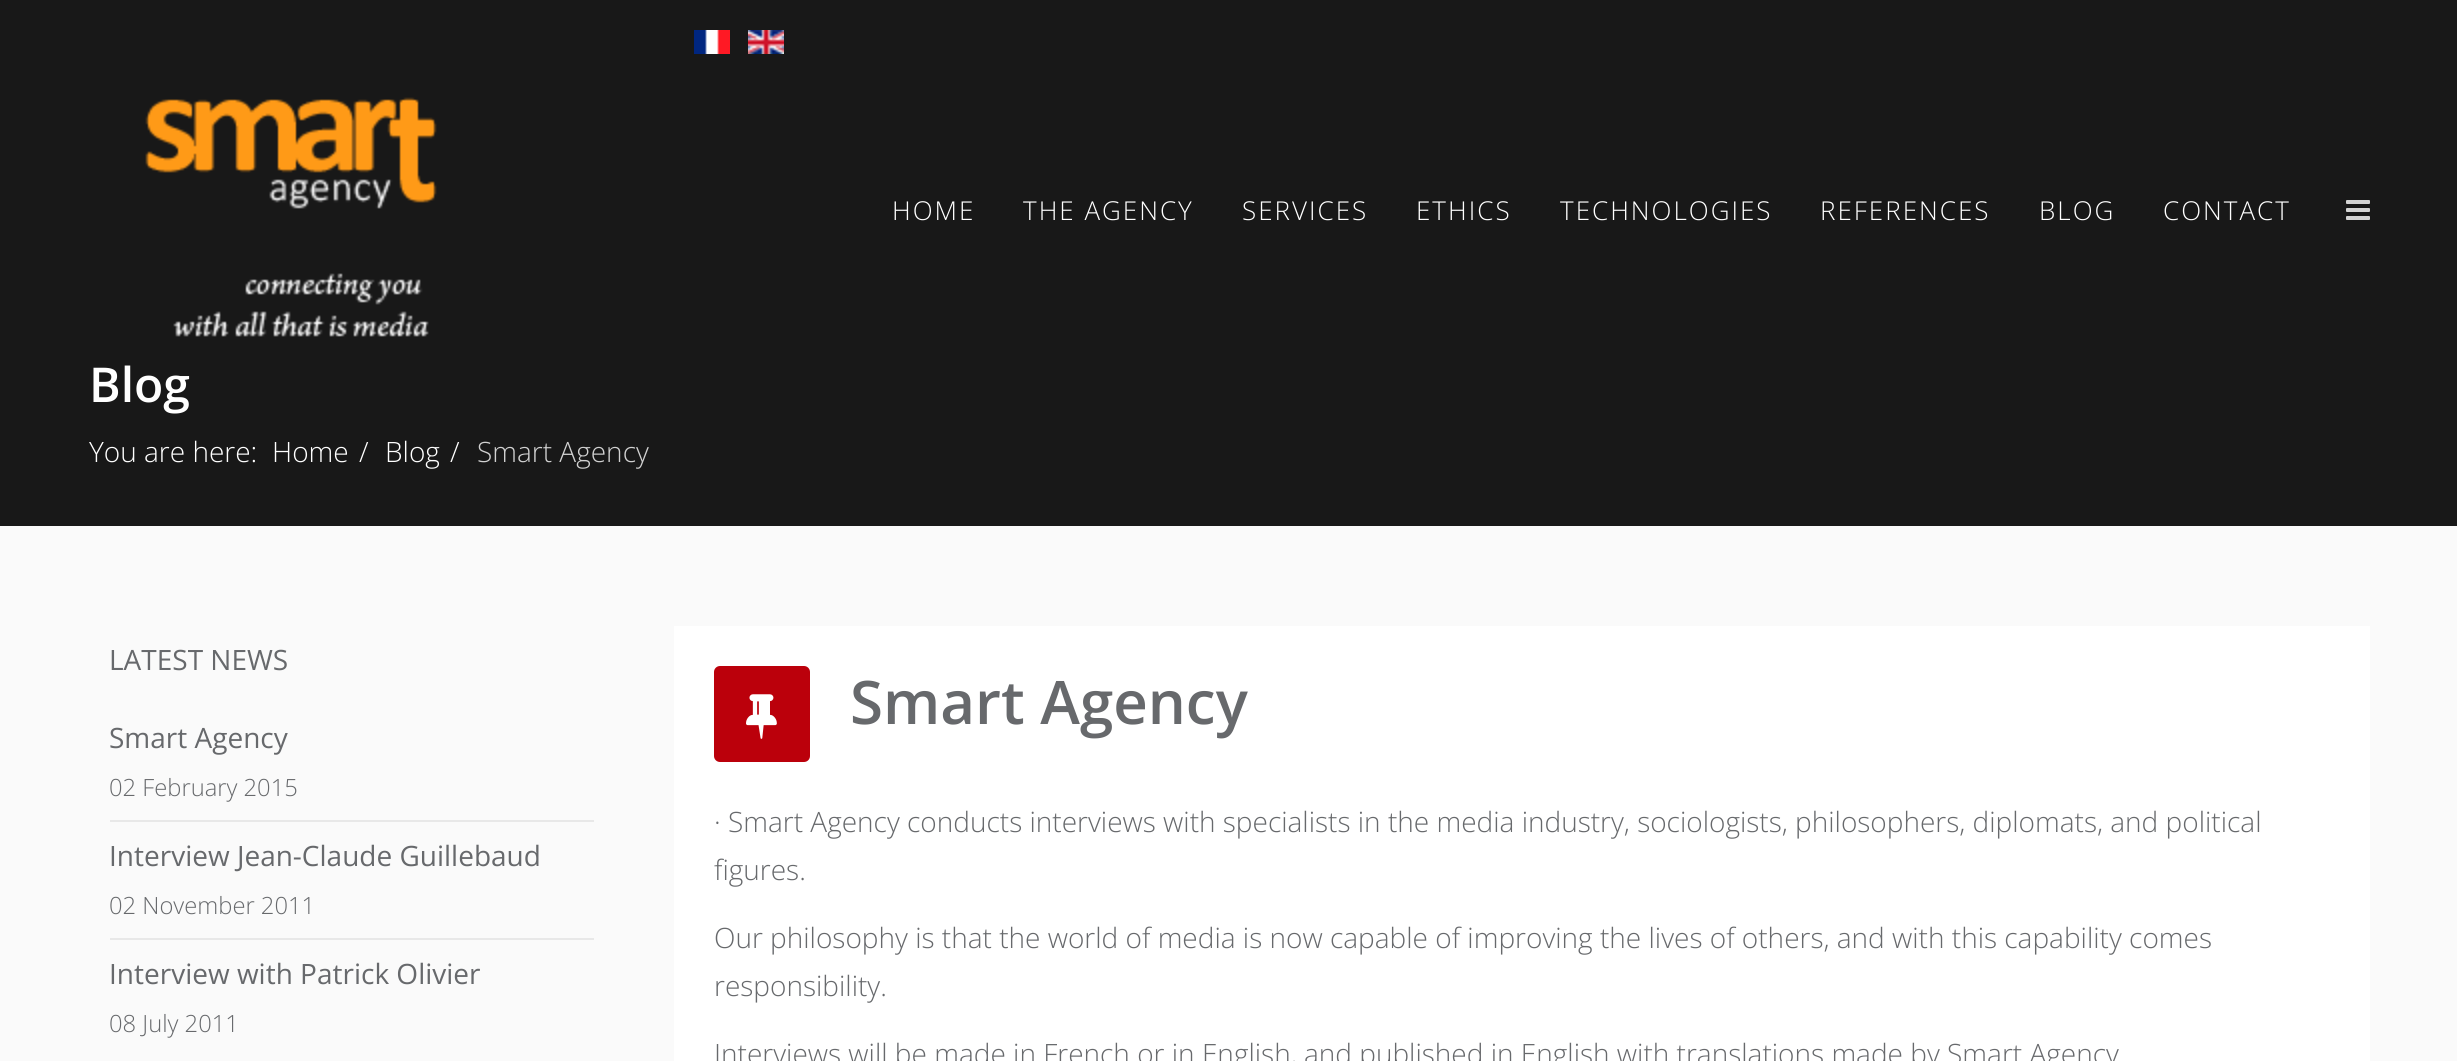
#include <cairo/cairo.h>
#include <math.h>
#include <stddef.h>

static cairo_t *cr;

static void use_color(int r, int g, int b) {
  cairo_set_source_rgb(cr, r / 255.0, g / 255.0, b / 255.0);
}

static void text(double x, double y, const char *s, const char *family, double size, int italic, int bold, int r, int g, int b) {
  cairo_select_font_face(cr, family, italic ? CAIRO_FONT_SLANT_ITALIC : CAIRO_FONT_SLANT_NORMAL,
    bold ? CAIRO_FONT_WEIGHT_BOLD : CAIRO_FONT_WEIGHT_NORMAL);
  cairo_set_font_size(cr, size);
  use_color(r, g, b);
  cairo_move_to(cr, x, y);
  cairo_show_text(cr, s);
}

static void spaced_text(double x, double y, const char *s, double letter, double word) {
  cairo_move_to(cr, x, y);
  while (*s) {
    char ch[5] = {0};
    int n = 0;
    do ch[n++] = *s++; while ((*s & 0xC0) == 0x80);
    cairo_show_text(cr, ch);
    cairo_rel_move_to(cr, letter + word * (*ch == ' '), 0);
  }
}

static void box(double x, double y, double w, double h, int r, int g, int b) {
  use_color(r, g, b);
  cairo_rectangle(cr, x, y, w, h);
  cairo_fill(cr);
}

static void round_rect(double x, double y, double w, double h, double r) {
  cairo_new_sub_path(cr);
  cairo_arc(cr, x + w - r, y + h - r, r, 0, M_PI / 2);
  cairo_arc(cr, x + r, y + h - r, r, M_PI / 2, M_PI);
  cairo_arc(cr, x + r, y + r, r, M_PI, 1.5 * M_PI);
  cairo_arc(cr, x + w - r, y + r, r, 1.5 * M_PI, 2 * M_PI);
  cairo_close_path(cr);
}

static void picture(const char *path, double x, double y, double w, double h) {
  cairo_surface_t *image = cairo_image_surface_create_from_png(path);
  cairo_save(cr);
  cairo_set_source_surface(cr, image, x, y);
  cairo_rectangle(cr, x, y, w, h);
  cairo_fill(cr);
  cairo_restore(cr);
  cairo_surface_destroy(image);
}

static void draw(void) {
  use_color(250, 250, 250);
  cairo_paint(cr);
  box(0, 0, 2457, 526, 24, 24, 24);
  picture("img_01.png", 145, 97, 292, 240);
  picture("img_02.png", 694, 30, 36, 24);
  picture("img_03.png", 748, 30, 36, 24);
  picture("img_04.png", 2346, 200, 24, 20);
  box(110, 820, 484, 2, 232, 232, 232);
  box(110, 938, 484, 2, 232, 232, 232);
  box(674, 626, 1696, 435, 255, 255, 255);
  use_color(187, 0, 11);
  round_rect(714, 666, 96, 96, 6);
  cairo_fill(cr);
  picture("img_05.png", 746, 694, 31, 45);
  cairo_select_font_face(cr, "Open Sans Light", CAIRO_FONT_SLANT_NORMAL, CAIRO_FONT_WEIGHT_NORMAL);
  cairo_set_font_size(cr, 26);
  use_color(255, 255, 255);
  spaced_text(892, 220, "HOME", 2, 0);
  spaced_text(1023, 220, "THE AGENCY", 2, 0);
  spaced_text(1242, 220, "SERVICES", 2, 0);
  spaced_text(1416, 220, "ETHICS", 2, 0);
  spaced_text(1560, 220, "TECHNOLOGIES", 2, 0);
  spaced_text(1820, 220, "REFERENCES", 2, 0);
  spaced_text(2039, 220, "BLOG", 2, 0);
  spaced_text(2163, 220, "CONTACT", 2, 0);
  text(89, 402, "Blog", "Open Sans SemiBold", 48, 0, 0, 255, 255, 255);
  text(89, 462, "You are here:", "Open Sans Light", 28, 0, 0, 255, 255, 255);
  text(272, 462, "Home", "Open Sans Light", 28, 0, 0, 255, 255, 255);
  text(359, 462, "/", "Open Sans Light", 28, 0, 0, 255, 255, 255);
  text(385, 462, "Blog", "Open Sans Light", 28, 0, 0, 255, 255, 255);
  text(450, 462, "/", "Open Sans Light", 28, 0, 0, 255, 255, 255);
  text(477, 462, "Smart Agency", "Open Sans Light", 28, 0, 0, 209, 209, 209);
  text(109, 670, "LATEST NEWS", "Open Sans", 28, 0, 0, 103, 105, 108);
  text(109, 748, "Smart Agency", "Open Sans", 28, 0, 0, 103, 105, 108);
  text(109, 796, "02 February 2015", "Open Sans Light", 23.75, 0, 0, 103, 105, 108);
  text(109, 866, "Interview Jean-Claude Guillebaud", "Open Sans", 28, 0, 0, 103, 105, 108);
  text(109, 914, "02 November 2011", "Open Sans Light", 23.75, 0, 0, 103, 105, 108);
  text(109, 984, "Interview with Patrick Olivier", "Open Sans", 28, 0, 0, 103, 105, 108);
  text(109, 1032, "08 July 2011", "Open Sans Light", 23.75, 0, 0, 103, 105, 108);
  text(850, 724, "Smart Agency", "Open Sans SemiBold", 60, 0, 0, 103, 105, 108);
  text(714, 832, "· Smart Agency conducts interviews with specialists in the media industry, sociologists, philosophers, diplomats, and political", "Open Sans Light", 28, 0, 0, 103, 105, 108);
  text(714, 880, "figures.", "Open Sans Light", 28, 0, 0, 103, 105, 108);
  text(714, 948, "Our philosophy is that the world of media is now capable of improving the lives of others, and with this capability comes", "Open Sans Light", 28, 0, 0, 103, 105, 108);
  text(714, 996, "responsibility.", "Open Sans Light", 28, 0, 0, 103, 105, 108);
  text(714, 1064, "Interviews will be made in French or in English, and published in English with translations made by Smart Agency", "Open Sans Light", 28, 0, 0, 103, 105, 108);
}

int main(void) {
  cairo_surface_t *surface = cairo_image_surface_create(CAIRO_FORMAT_RGB24, 2457, 1061);
  cr = cairo_create(surface);
  cairo_font_options_t *options = cairo_font_options_create();
  cairo_font_options_set_hint_metrics(options, CAIRO_HINT_METRICS_OFF);
  cairo_font_options_set_hint_style(options, CAIRO_HINT_STYLE_NONE);
  cairo_set_font_options(cr, options);
  cairo_set_miter_limit(cr, 4);
  draw();
  cairo_surface_write_to_png(surface, "out.png");
  cairo_font_options_destroy(options);
  cairo_destroy(cr);
  cairo_surface_destroy(surface);
  return 0;
}
